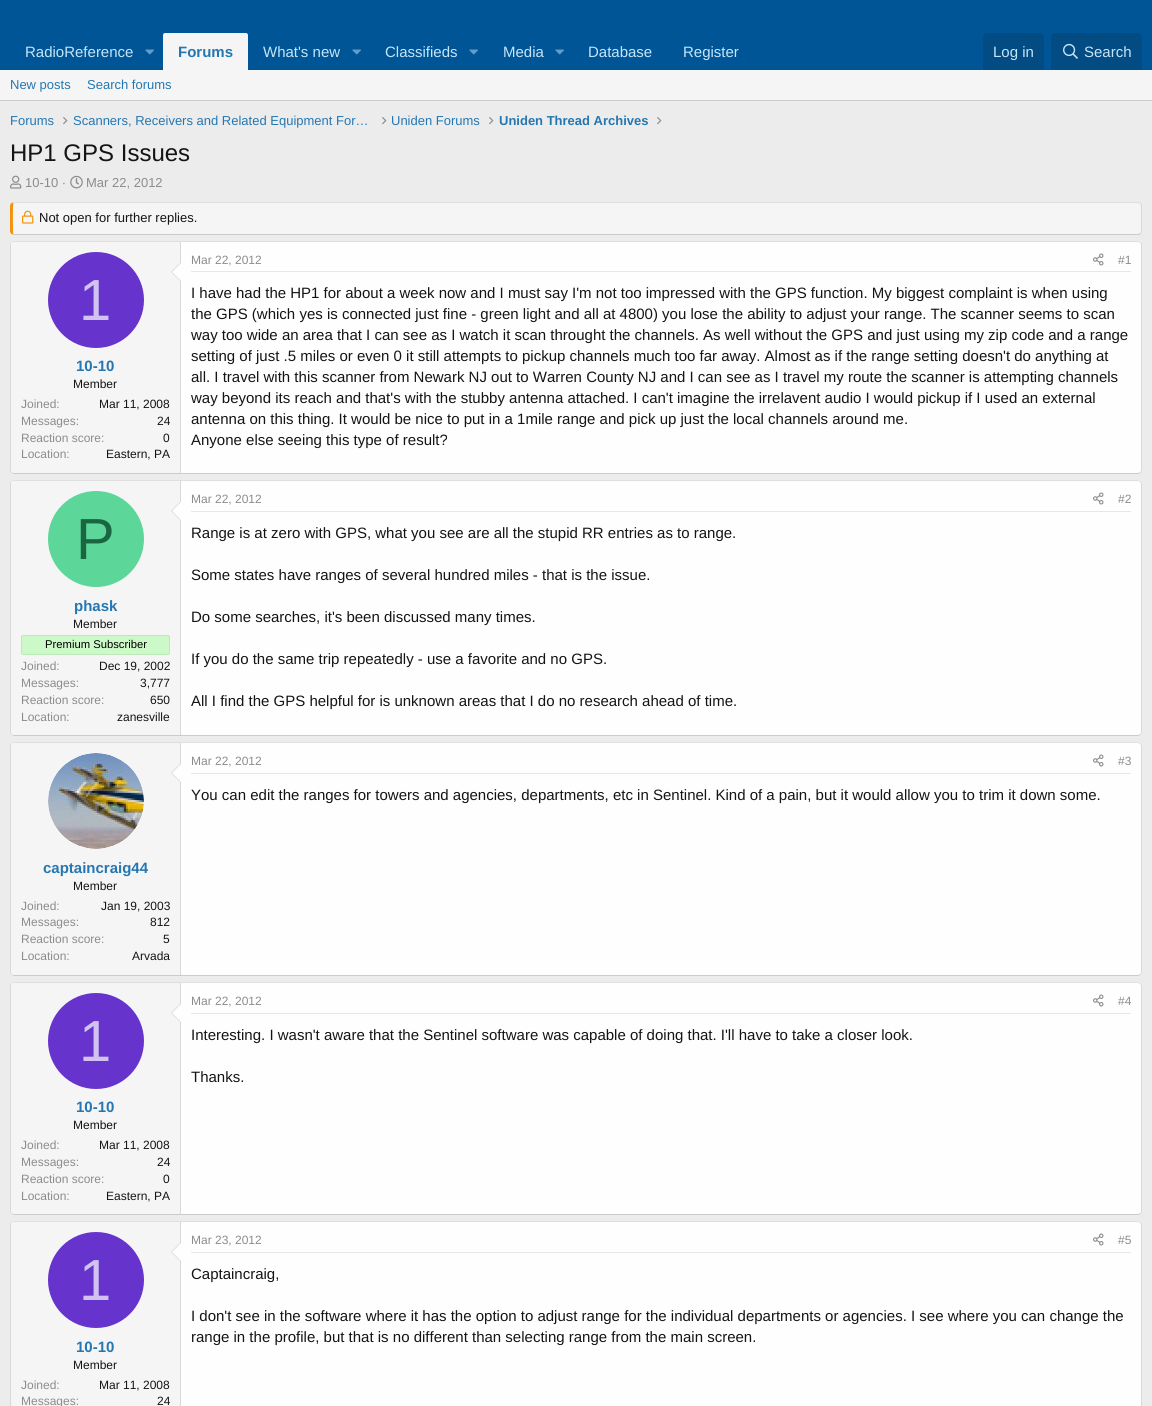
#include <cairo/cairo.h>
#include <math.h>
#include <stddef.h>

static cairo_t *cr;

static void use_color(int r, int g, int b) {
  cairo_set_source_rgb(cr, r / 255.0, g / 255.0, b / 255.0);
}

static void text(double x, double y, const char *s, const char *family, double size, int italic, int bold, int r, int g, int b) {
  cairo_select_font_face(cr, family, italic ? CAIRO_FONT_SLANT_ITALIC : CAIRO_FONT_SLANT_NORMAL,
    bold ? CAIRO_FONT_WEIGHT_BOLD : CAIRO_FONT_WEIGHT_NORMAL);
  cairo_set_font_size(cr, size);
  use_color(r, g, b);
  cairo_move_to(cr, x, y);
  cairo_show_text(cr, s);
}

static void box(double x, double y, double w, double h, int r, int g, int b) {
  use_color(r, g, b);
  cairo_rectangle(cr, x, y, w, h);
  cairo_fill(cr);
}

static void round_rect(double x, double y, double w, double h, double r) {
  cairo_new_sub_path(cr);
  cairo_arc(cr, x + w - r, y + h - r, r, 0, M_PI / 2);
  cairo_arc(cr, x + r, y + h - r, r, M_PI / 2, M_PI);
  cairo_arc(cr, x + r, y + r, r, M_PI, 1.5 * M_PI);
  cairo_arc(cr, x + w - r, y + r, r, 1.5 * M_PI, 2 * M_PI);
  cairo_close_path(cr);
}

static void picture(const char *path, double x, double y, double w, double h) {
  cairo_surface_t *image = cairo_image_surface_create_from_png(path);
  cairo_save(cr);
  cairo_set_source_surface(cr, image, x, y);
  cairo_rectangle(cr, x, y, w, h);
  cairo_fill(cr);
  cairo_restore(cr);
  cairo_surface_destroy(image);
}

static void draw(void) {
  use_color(236, 236, 236);
  cairo_paint(cr);
  box(0, 0, 1152, 70, 0, 85, 151);
  picture("img_01.png", 145, 49, 9, 6);
  use_color(245, 245, 245);
  cairo_new_path(cr);
  cairo_move_to(cr, 165, 33);
  cairo_line_to(cr, 246, 33);
  cairo_curve_to(cr, 247, 33, 248, 34, 248, 35);
  cairo_line_to(cr, 248, 70);
  cairo_line_to(cr, 163, 70);
  cairo_line_to(cr, 163, 35);
  cairo_curve_to(cr, 163, 34, 164, 33, 165, 33);
  cairo_close_path(cr);
  cairo_fill(cr);
  picture("img_01.png", 352, 49, 9, 6);
  picture("img_01.png", 469, 49, 9, 6);
  picture("img_01.png", 555, 49, 9, 6);
  use_color(3, 75, 131);
  cairo_new_path(cr);
  cairo_move_to(cr, 987, 33);
  cairo_line_to(cr, 1040, 33);
  cairo_curve_to(cr, 1042, 33, 1044, 35, 1044, 37);
  cairo_line_to(cr, 1044, 70);
  cairo_line_to(cr, 983, 70);
  cairo_line_to(cr, 983, 37);
  cairo_curve_to(cr, 983, 35, 985, 33, 987, 33);
  cairo_close_path(cr);
  cairo_fill(cr);
  cairo_new_path(cr);
  cairo_move_to(cr, 1055, 33);
  cairo_line_to(cr, 1138, 33);
  cairo_curve_to(cr, 1140, 33, 1142, 35, 1142, 37);
  cairo_line_to(cr, 1142, 70);
  cairo_line_to(cr, 1051, 70);
  cairo_line_to(cr, 1051, 37);
  cairo_curve_to(cr, 1051, 35, 1053, 33, 1055, 33);
  cairo_close_path(cr);
  cairo_fill(cr);
  picture("img_02.png", 1063, 43, 15, 16);
  box(0, 70, 1152, 30, 245, 245, 245);
  box(0, 100, 1152, 1, 203, 203, 203);
  picture("img_03.png", 63, 117, 5, 8);
  picture("img_03.png", 382, 117, 5, 8);
  picture("img_03.png", 489, 117, 5, 8);
  picture("img_03.png", 657, 117, 5, 8);
  picture("img_04.png", 10, 175, 12, 14);
  picture("img_05.png", 70, 175, 13, 14);
  use_color(245, 245, 245);
  cairo_new_path(cr);
  cairo_move_to(cr, 14, 203);
  cairo_line_to(cr, 1138, 203);
  cairo_curve_to(cr, 1140, 203, 1141, 204, 1141, 206);
  cairo_line_to(cr, 1141, 231);
  cairo_curve_to(cr, 1141, 233, 1140, 234, 1138, 234);
  cairo_line_to(cr, 14, 234);
  cairo_curve_to(cr, 13, 234, 13, 233, 13, 231);
  cairo_line_to(cr, 13, 206);
  cairo_curve_to(cr, 13, 204, 13, 203, 14, 203);
  cairo_close_path(cr);
  cairo_fill(cr);
  use_color(223, 223, 223);
  cairo_new_path(cr);
  cairo_move_to(cr, 14, 202);
  cairo_line_to(cr, 12, 203);
  cairo_line_to(cr, 13, 203);
  cairo_line_to(cr, 1138, 203);
  cairo_line_to(cr, 1140, 204);
  cairo_line_to(cr, 1141, 203);
  cairo_line_to(cr, 1138, 202);
  cairo_close_path(cr);
  cairo_fill(cr);
  use_color(216, 216, 216);
  cairo_new_path(cr);
  cairo_move_to(cr, 1142, 231);
  cairo_line_to(cr, 1142, 206);
  cairo_curve_to(cr, 1142, 205, 1141.5, 204, 1141, 203);
  cairo_line_to(cr, 1140, 204);
  cairo_curve_to(cr, 1141, 204, 1141, 205, 1141, 206);
  cairo_line_to(cr, 1141, 231);
  cairo_curve_to(cr, 1141, 232, 1141, 233, 1140, 233);
  cairo_line_to(cr, 1141, 234);
  cairo_curve_to(cr, 1141.5, 233, 1142, 232, 1142, 231);
  cairo_close_path(cr);
  cairo_fill(cr);
  use_color(203, 203, 203);
  cairo_new_path(cr);
  cairo_move_to(cr, 14, 235);
  cairo_line_to(cr, 1138, 235);
  cairo_line_to(cr, 1141, 234);
  cairo_line_to(cr, 1140, 233);
  cairo_line_to(cr, 1138, 234);
  cairo_line_to(cr, 13, 234);
  cairo_line_to(cr, 12, 234);
  cairo_close_path(cr);
  cairo_fill(cr);
  use_color(242, 147, 13);
  cairo_new_path(cr);
  cairo_move_to(cr, 10, 206);
  cairo_line_to(cr, 10, 231);
  cairo_curve_to(cr, 10, 232.5, 11, 233.5, 12, 234.5);
  cairo_line_to(cr, 13.5, 234);
  cairo_curve_to(cr, 13, 233.5, 13, 231.5, 13, 231);
  cairo_curve_to(cr, 13, 228, 12.5, 204, 13.5, 203);
  cairo_line_to(cr, 12, 202.5);
  cairo_curve_to(cr, 11, 203.5, 10, 204.5, 10, 206);
  cairo_close_path(cr);
  cairo_fill(cr);
  picture("img_06.png", 22, 210, 12, 14);
  use_color(254, 254, 254);
  round_rect(10, 241, 1132, 233, 4);
  cairo_fill(cr);
  cairo_new_path(cr);
  cairo_move_to(cr, 11.5, 242.5);
  cairo_line_to(cr, 14, 241.5);
  cairo_line_to(cr, 1138, 241.5);
  cairo_line_to(cr, 1140.5, 242.5);
  use_color(223, 223, 223);
  cairo_set_line_width(cr, 1);
  cairo_stroke(cr);
  cairo_new_path(cr);
  cairo_move_to(cr, 1140.5, 242.5);
  cairo_curve_to(cr, 1141, 243, 1141.5, 244, 1141.5, 245);
  cairo_line_to(cr, 1141.5, 470);
  cairo_curve_to(cr, 1141.5, 471, 1141, 472, 1140.5, 472.5);
  use_color(216, 216, 216);
  cairo_stroke(cr);
  cairo_new_path(cr);
  cairo_move_to(cr, 1140.5, 472.5);
  cairo_line_to(cr, 1138, 473.5);
  cairo_line_to(cr, 14, 473.5);
  cairo_line_to(cr, 11.5, 472.5);
  use_color(203, 203, 203);
  cairo_stroke(cr);
  cairo_new_path(cr);
  cairo_move_to(cr, 11.5, 472.5);
  cairo_curve_to(cr, 11, 472, 10.5, 471, 10.5, 470);
  cairo_line_to(cr, 10.5, 245);
  cairo_curve_to(cr, 10.5, 244, 11, 243, 11.5, 242.5);
  use_color(216, 216, 216);
  cairo_stroke(cr);
  use_color(245, 245, 245);
  cairo_new_path(cr);
  cairo_move_to(cr, 14, 242);
  cairo_line_to(cr, 181, 242);
  cairo_line_to(cr, 181, 473);
  cairo_line_to(cr, 14, 473);
  cairo_curve_to(cr, 12.5, 473, 11, 471.5, 11, 470);
  cairo_line_to(cr, 11, 245);
  cairo_curve_to(cr, 11, 243.5, 12.5, 242, 14, 242);
  cairo_close_path(cr);
  cairo_fill(cr);
  box(180, 242, 1, 231, 216, 216, 216);
  cairo_new_path(cr);
  cairo_move_to(cr, 181, 262);
  cairo_line_to(cr, 181, 282);
  cairo_line_to(cr, 171, 272);
  cairo_close_path(cr);
  cairo_fill(cr);
  use_color(254, 254, 254);
  cairo_new_path(cr);
  cairo_move_to(cr, 181, 263);
  cairo_line_to(cr, 181, 281);
  cairo_line_to(cr, 172, 272);
  cairo_close_path(cr);
  cairo_fill(cr);
  use_color(102, 51, 204);
  cairo_arc(cr, 96, 300, 48, 0, 2 * M_PI);
  cairo_fill(cr);
  box(191, 271, 940, 1, 231, 231, 231);
  picture("img_07.png", 1093, 253, 11, 13);
  use_color(254, 254, 254);
  round_rect(10, 480, 1132, 256, 4);
  cairo_fill(cr);
  cairo_new_path(cr);
  cairo_move_to(cr, 11.5, 481.5);
  cairo_line_to(cr, 14, 480.5);
  cairo_line_to(cr, 1138, 480.5);
  cairo_line_to(cr, 1140.5, 481.5);
  use_color(223, 223, 223);
  cairo_stroke(cr);
  cairo_new_path(cr);
  cairo_move_to(cr, 1140.5, 481.5);
  cairo_curve_to(cr, 1141, 482, 1141.5, 483, 1141.5, 484);
  cairo_line_to(cr, 1141.5, 732);
  cairo_curve_to(cr, 1141.5, 733, 1141, 734, 1140.5, 734.5);
  use_color(216, 216, 216);
  cairo_stroke(cr);
  cairo_new_path(cr);
  cairo_move_to(cr, 1140.5, 734.5);
  cairo_line_to(cr, 1138, 735.5);
  cairo_line_to(cr, 14, 735.5);
  cairo_line_to(cr, 11.5, 734.5);
  use_color(203, 203, 203);
  cairo_stroke(cr);
  cairo_new_path(cr);
  cairo_move_to(cr, 11.5, 734.5);
  cairo_curve_to(cr, 11, 734, 10.5, 733, 10.5, 732);
  cairo_line_to(cr, 10.5, 484);
  cairo_curve_to(cr, 10.5, 483, 11, 482, 11.5, 481.5);
  use_color(216, 216, 216);
  cairo_stroke(cr);
  use_color(245, 245, 245);
  cairo_new_path(cr);
  cairo_move_to(cr, 14, 481);
  cairo_line_to(cr, 181, 481);
  cairo_line_to(cr, 181, 735);
  cairo_line_to(cr, 14, 735);
  cairo_curve_to(cr, 12.5, 735, 11, 733.5, 11, 732);
  cairo_line_to(cr, 11, 484);
  cairo_curve_to(cr, 11, 482.5, 12.5, 481, 14, 481);
  cairo_close_path(cr);
  cairo_fill(cr);
  box(180, 481, 1, 254, 216, 216, 216);
  cairo_new_path(cr);
  cairo_move_to(cr, 181, 501);
  cairo_line_to(cr, 181, 521);
  cairo_line_to(cr, 171, 511);
  cairo_close_path(cr);
  cairo_fill(cr);
  use_color(254, 254, 254);
  cairo_new_path(cr);
  cairo_move_to(cr, 181, 502);
  cairo_line_to(cr, 181, 520);
  cairo_line_to(cr, 172, 511);
  cairo_close_path(cr);
  cairo_fill(cr);
  use_color(92, 214, 153);
  cairo_arc(cr, 96, 539, 48, 0, 2 * M_PI);
  cairo_fill(cr);
  use_color(204, 249, 200);
  round_rect(21.5, 635.5, 148, 19, 1.5);
  cairo_fill_preserve(cr);
  use_color(190, 232, 186);
  cairo_stroke(cr);
  box(191, 511, 940, 1, 231, 231, 231);
  picture("img_07.png", 1093, 492, 11, 13);
  use_color(254, 254, 254);
  round_rect(10, 742, 1132, 234, 4);
  cairo_fill(cr);
  cairo_new_path(cr);
  cairo_move_to(cr, 11.5, 743.5);
  cairo_line_to(cr, 14, 742.5);
  cairo_line_to(cr, 1138, 742.5);
  cairo_line_to(cr, 1140.5, 743.5);
  use_color(223, 223, 223);
  cairo_stroke(cr);
  cairo_new_path(cr);
  cairo_move_to(cr, 1140.5, 743.5);
  cairo_curve_to(cr, 1141, 744, 1141.5, 745, 1141.5, 746);
  cairo_line_to(cr, 1141.5, 972);
  cairo_curve_to(cr, 1141.5, 973, 1141, 974, 1140.5, 974.5);
  use_color(216, 216, 216);
  cairo_stroke(cr);
  cairo_new_path(cr);
  cairo_move_to(cr, 1140.5, 974.5);
  cairo_line_to(cr, 1138, 975.5);
  cairo_line_to(cr, 14, 975.5);
  cairo_line_to(cr, 11.5, 974.5);
  use_color(203, 203, 203);
  cairo_stroke(cr);
  cairo_new_path(cr);
  cairo_move_to(cr, 11.5, 974.5);
  cairo_curve_to(cr, 11, 974, 10.5, 973, 10.5, 972);
  cairo_line_to(cr, 10.5, 746);
  cairo_curve_to(cr, 10.5, 745, 11, 744, 11.5, 743.5);
  use_color(216, 216, 216);
  cairo_stroke(cr);
  box(191, 773, 940, 1, 231, 231, 231);
  picture("img_07.png", 1093, 754, 11, 13);
  use_color(245, 245, 245);
  cairo_new_path(cr);
  cairo_move_to(cr, 14, 743);
  cairo_line_to(cr, 181, 743);
  cairo_line_to(cr, 181, 975);
  cairo_line_to(cr, 14, 975);
  cairo_curve_to(cr, 12.5, 975, 11, 973.5, 11, 972);
  cairo_line_to(cr, 11, 746);
  cairo_curve_to(cr, 11, 744.5, 12.5, 743, 14, 743);
  cairo_close_path(cr);
  cairo_fill(cr);
  box(180, 743, 1, 232, 216, 216, 216);
  use_color(254, 254, 254);
  cairo_arc(cr, 96, 801, 48, 0, 2 * M_PI);
  cairo_fill(cr);
  picture("img_08.png", 48, 753, 96, 96);
  use_color(216, 216, 216);
  cairo_new_path(cr);
  cairo_move_to(cr, 181, 763);
  cairo_line_to(cr, 181, 783);
  cairo_line_to(cr, 171, 773);
  cairo_close_path(cr);
  cairo_fill(cr);
  use_color(254, 254, 254);
  cairo_new_path(cr);
  cairo_move_to(cr, 181, 764);
  cairo_line_to(cr, 181, 782);
  cairo_line_to(cr, 172, 773);
  cairo_close_path(cr);
  cairo_fill(cr);
  round_rect(10, 982, 1132, 233, 4);
  cairo_fill(cr);
  cairo_new_path(cr);
  cairo_move_to(cr, 11.5, 983.5);
  cairo_line_to(cr, 14, 982.5);
  cairo_line_to(cr, 1138, 982.5);
  cairo_line_to(cr, 1140.5, 983.5);
  use_color(223, 223, 223);
  cairo_stroke(cr);
  cairo_new_path(cr);
  cairo_move_to(cr, 1140.5, 983.5);
  cairo_curve_to(cr, 1141, 984, 1141.5, 985, 1141.5, 986);
  cairo_line_to(cr, 1141.5, 1211);
  cairo_curve_to(cr, 1141.5, 1212, 1141, 1213, 1140.5, 1213.5);
  use_color(216, 216, 216);
  cairo_stroke(cr);
  cairo_new_path(cr);
  cairo_move_to(cr, 1140.5, 1213.5);
  cairo_line_to(cr, 1138, 1214.5);
  cairo_line_to(cr, 14, 1214.5);
  cairo_line_to(cr, 11.5, 1213.5);
  use_color(203, 203, 203);
  cairo_stroke(cr);
  cairo_new_path(cr);
  cairo_move_to(cr, 11.5, 1213.5);
  cairo_curve_to(cr, 11, 1213, 10.5, 1212, 10.5, 1211);
  cairo_line_to(cr, 10.5, 986);
  cairo_curve_to(cr, 10.5, 985, 11, 984, 11.5, 983.5);
  use_color(216, 216, 216);
  cairo_stroke(cr);
  use_color(245, 245, 245);
  cairo_new_path(cr);
  cairo_move_to(cr, 14, 983);
  cairo_line_to(cr, 181, 983);
  cairo_line_to(cr, 181, 1214);
  cairo_line_to(cr, 14, 1214);
  cairo_curve_to(cr, 12.5, 1214, 11, 1212.5, 11, 1211);
  cairo_line_to(cr, 11, 986);
  cairo_curve_to(cr, 11, 984.5, 12.5, 983, 14, 983);
  cairo_close_path(cr);
  cairo_fill(cr);
  box(180, 983, 1, 231, 216, 216, 216);
  cairo_new_path(cr);
  cairo_move_to(cr, 181, 1003);
  cairo_line_to(cr, 181, 1023);
  cairo_line_to(cr, 171, 1013);
  cairo_close_path(cr);
  cairo_fill(cr);
  use_color(254, 254, 254);
  cairo_new_path(cr);
  cairo_move_to(cr, 181, 1004);
  cairo_line_to(cr, 181, 1022);
  cairo_line_to(cr, 172, 1013);
  cairo_close_path(cr);
  cairo_fill(cr);
  use_color(102, 51, 204);
  cairo_arc(cr, 96, 1041, 48, 0, 2 * M_PI);
  cairo_fill(cr);
  box(191, 1013, 940, 1, 231, 231, 231);
  picture("img_07.png", 1093, 994, 11, 13);
  use_color(254, 254, 254);
  round_rect(10, 1221, 1132, 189, 4);
  cairo_fill(cr);
  cairo_new_path(cr);
  cairo_move_to(cr, 11.5, 1222.5);
  cairo_line_to(cr, 14, 1221.5);
  cairo_line_to(cr, 1138, 1221.5);
  cairo_line_to(cr, 1140.5, 1222.5);
  use_color(223, 223, 223);
  cairo_stroke(cr);
  cairo_new_path(cr);
  cairo_move_to(cr, 1140.5, 1222.5);
  cairo_curve_to(cr, 1141, 1223, 1141.5, 1224, 1141.5, 1225);
  cairo_line_to(cr, 1141.5, 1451);
  cairo_curve_to(cr, 1141.5, 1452, 1141, 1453, 1140.5, 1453.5);
  use_color(216, 216, 216);
  cairo_stroke(cr);
  cairo_new_path(cr);
  cairo_move_to(cr, 11.5, 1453.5);
  cairo_curve_to(cr, 11, 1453, 10.5, 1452, 10.5, 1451);
  cairo_line_to(cr, 10.5, 1225);
  cairo_curve_to(cr, 10.5, 1224, 11, 1223, 11.5, 1222.5);
  cairo_stroke(cr);
  use_color(245, 245, 245);
  cairo_new_path(cr);
  cairo_move_to(cr, 14, 1222);
  cairo_line_to(cr, 181, 1222);
  cairo_line_to(cr, 181, 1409);
  cairo_line_to(cr, 14, 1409);
  cairo_curve_to(cr, 12.5, 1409, 11, 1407.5, 11, 1406);
  cairo_line_to(cr, 11, 1225);
  cairo_curve_to(cr, 11, 1223.5, 12.5, 1222, 14, 1222);
  cairo_close_path(cr);
  cairo_fill(cr);
  box(180, 1222, 1, 184, 216, 216, 216);
  cairo_new_path(cr);
  cairo_move_to(cr, 181, 1242);
  cairo_line_to(cr, 181, 1262);
  cairo_line_to(cr, 171, 1252);
  cairo_close_path(cr);
  cairo_fill(cr);
  use_color(254, 254, 254);
  cairo_new_path(cr);
  cairo_move_to(cr, 181, 1243);
  cairo_line_to(cr, 181, 1261);
  cairo_line_to(cr, 172, 1252);
  cairo_close_path(cr);
  cairo_fill(cr);
  use_color(102, 51, 204);
  cairo_arc(cr, 96, 1280, 48, 0, 2 * M_PI);
  cairo_fill(cr);
  box(191, 1252, 940, 1, 231, 231, 231);
  picture("img_07.png", 1093, 1233, 11, 13);
  text(25, 57, "RadioReference", "Liberation Sans", 15, 0, 0, 197, 229, 248);
  text(178, 57, "Forums", "Liberation Sans", 15, 0, 1, 37, 119, 177);
  text(263, 57, "What's new", "Liberation Sans", 15, 0, 0, 197, 229, 248);
  text(385, 57, "Classifieds", "Liberation Sans", 15, 0, 0, 197, 229, 248);
  text(503, 57, "Media", "Liberation Sans", 15, 0, 0, 197, 229, 248);
  text(588, 57, "Database", "Liberation Sans", 15, 0, 0, 197, 229, 248);
  text(683, 57, "Register", "Liberation Sans", 15, 0, 0, 197, 229, 248);
  text(993, 57, "Log in", "Liberation Sans", 15, 0, 0, 197, 229, 248);
  text(1084, 57, "Search", "Liberation Sans", 15, 0, 0, 197, 229, 248);
  text(10, 89, "New posts", "Liberation Sans", 13, 0, 0, 37, 119, 177);
  text(87, 89, "Search forums", "Liberation Sans", 13, 0, 0, 37, 119, 177);
  text(10, 125, "Forums", "Liberation Sans", 13, 0, 0, 37, 119, 177);
  text(73, 125, "Scanners, Receivers and Related Equipment For…", "Liberation Sans", 13, 0, 0, 37, 119, 177);
  text(391, 125, "Uniden Forums", "Liberation Sans", 13, 0, 0, 37, 119, 177);
  text(499, 125, "Uniden Thread Archives", "Liberation Sans", 13, 0, 1, 37, 119, 177);
  text(10, 161, "HP1 GPS Issues", "Liberation Sans", 24, 0, 0, 20, 20, 20);
  text(25, 187, "10-10 ·", "Liberation Sans", 13, 0, 0, 140, 140, 140);
  text(86, 187, "Mar 22, 2012", "Liberation Sans", 13, 0, 0, 140, 140, 140);
  text(39, 222, "Not open for further replies.", "Liberation Sans", 13, 0, 0, 20, 20, 20);
  text(79, 320, "1", "Liberation Sans", 58, 0, 0, 209, 194, 240);
  text(76, 371, "10-10", "Liberation Sans", 15, 0, 1, 37, 119, 177);
  text(73, 388, "Member", "Liberation Sans", 12, 0, 0, 20, 20, 20);
  text(21, 408, "Joined:", "Liberation Sans", 12, 0, 0, 140, 140, 140);
  text(99, 408, "Mar 11, 2008", "Liberation Sans", 12, 0, 0, 20, 20, 20);
  text(21, 425, "Messages:", "Liberation Sans", 12, 0, 0, 140, 140, 140);
  text(157, 425, "24", "Liberation Sans", 12, 0, 0, 20, 20, 20);
  text(21, 442, "Reaction score:", "Liberation Sans", 12, 0, 0, 140, 140, 140);
  text(163, 442, "0", "Liberation Sans", 12, 0, 0, 20, 20, 20);
  text(21, 458, "Location:", "Liberation Sans", 12, 0, 0, 140, 140, 140);
  text(106, 458, "Eastern, PA", "Liberation Sans", 12, 0, 0, 20, 20, 20);
  text(191, 264, "Mar 22, 2012", "Liberation Sans", 12, 0, 0, 140, 140, 140);
  text(1118, 264, "#1", "Liberation Sans", 12, 0, 0, 140, 140, 140);
  text(191, 298, "I have had the HP1 for about a week now and I must say I'm not too impressed with the GPS function. My biggest complaint is when using", "Liberation Sans", 15, 0, 0, 20, 20, 20);
  text(191, 319, "the GPS (which yes is connected just fine - green light and all at 4800) you lose the ability to adjust your range. The scanner seems to scan", "Liberation Sans", 15, 0, 0, 20, 20, 20);
  text(191, 340, "way too wide an area that I can see as I watch it scan throught the channels. As well without the GPS and just using my zip code and a range", "Liberation Sans", 15, 0, 0, 20, 20, 20);
  text(191, 361, "setting of just .5 miles or even 0 it still attempts to pickup channels much too far away. Almost as if the range setting doesn't do anything at", "Liberation Sans", 15, 0, 0, 20, 20, 20);
  text(191, 382, "all. I travel with this scanner from Newark NJ out to Warren County NJ and I can see as I travel my route the scanner is attempting channels", "Liberation Sans", 15, 0, 0, 20, 20, 20);
  text(191, 403, "way beyond its reach and that's with the stubby antenna attached. I can't imagine the irrelavent audio I would pickup if I used an external", "Liberation Sans", 15, 0, 0, 20, 20, 20);
  text(191, 424, "antenna on this thing. It would be nice to put in a 1mile range and pick up just the local channels around me.", "Liberation Sans", 15, 0, 0, 20, 20, 20);
  text(191, 445, "Anyone else seeing this type of result?", "Liberation Sans", 15, 0, 0, 20, 20, 20);
  text(76, 559, "P", "Liberation Sans", 58, 0, 0, 26, 102, 64);
  text(74, 611, "phask", "Liberation Sans", 15, 0, 1, 37, 119, 177);
  text(73, 628, "Member", "Liberation Sans", 12, 0, 0, 20, 20, 20);
  text(45, 648, "Premium Subscriber", "Liberation Sans", 11.25, 0, 0, 0, 0, 0);
  text(21, 670, "Joined:", "Liberation Sans", 12, 0, 0, 140, 140, 140);
  text(99, 670, "Dec 19, 2002", "Liberation Sans", 12, 0, 0, 20, 20, 20);
  text(21, 687, "Messages:", "Liberation Sans", 12, 0, 0, 140, 140, 140);
  text(140, 687, "3,777", "Liberation Sans", 12, 0, 0, 20, 20, 20);
  text(21, 704, "Reaction score:", "Liberation Sans", 12, 0, 0, 140, 140, 140);
  text(150, 704, "650", "Liberation Sans", 12, 0, 0, 20, 20, 20);
  text(21, 721, "Location:", "Liberation Sans", 12, 0, 0, 140, 140, 140);
  text(117, 721, "zanesville", "Liberation Sans", 12, 0, 0, 20, 20, 20);
  text(191, 503, "Mar 22, 2012", "Liberation Sans", 12, 0, 0, 140, 140, 140);
  text(1118, 503, "#2", "Liberation Sans", 12, 0, 0, 140, 140, 140);
  text(191, 538, "Range is at zero with GPS, what you see are all the stupid RR entries as to range.", "Liberation Sans", 15, 0, 0, 20, 20, 20);
  text(191, 580, "Some states have ranges of several hundred miles - that is the issue.", "Liberation Sans", 15, 0, 0, 20, 20, 20);
  text(191, 622, "Do some searches, it's been discussed many times.", "Liberation Sans", 15, 0, 0, 20, 20, 20);
  text(191, 664, "If you do the same trip repeatedly - use a favorite and no GPS.", "Liberation Sans", 15, 0, 0, 20, 20, 20);
  text(191, 706, "All I find the GPS helpful for is unknown areas that I do no research ahead of time.", "Liberation Sans", 15, 0, 0, 20, 20, 20);
  text(191, 765, "Mar 22, 2012", "Liberation Sans", 12, 0, 0, 140, 140, 140);
  text(1118, 765, "#3", "Liberation Sans", 12, 0, 0, 140, 140, 140);
  text(191, 800, "You can edit the ranges for towers and agencies, departments, etc in Sentinel. Kind of a pain, but it would allow you to trim it down some.", "Liberation Sans", 15, 0, 0, 20, 20, 20);
  text(43, 873, "captaincraig44", "Liberation Sans", 15, 0, 1, 37, 119, 177);
  text(73, 890, "Member", "Liberation Sans", 12, 0, 0, 20, 20, 20);
  text(21, 910, "Joined:", "Liberation Sans", 12, 0, 0, 140, 140, 140);
  text(101, 910, "Jan 19, 2003", "Liberation Sans", 12, 0, 0, 20, 20, 20);
  text(21, 926, "Messages:", "Liberation Sans", 12, 0, 0, 140, 140, 140);
  text(150, 926, "812", "Liberation Sans", 12, 0, 0, 20, 20, 20);
  text(21, 943, "Reaction score:", "Liberation Sans", 12, 0, 0, 140, 140, 140);
  text(163, 943, "5", "Liberation Sans", 12, 0, 0, 20, 20, 20);
  text(21, 960, "Location:", "Liberation Sans", 12, 0, 0, 140, 140, 140);
  text(132, 960, "Arvada", "Liberation Sans", 12, 0, 0, 20, 20, 20);
  text(79, 1061, "1", "Liberation Sans", 58, 0, 0, 209, 194, 240);
  text(76, 1112, "10-10", "Liberation Sans", 15, 0, 1, 37, 119, 177);
  text(73, 1129, "Member", "Liberation Sans", 12, 0, 0, 20, 20, 20);
  text(21, 1149, "Joined:", "Liberation Sans", 12, 0, 0, 140, 140, 140);
  text(99, 1149, "Mar 11, 2008", "Liberation Sans", 12, 0, 0, 20, 20, 20);
  text(21, 1166, "Messages:", "Liberation Sans", 12, 0, 0, 140, 140, 140);
  text(157, 1166, "24", "Liberation Sans", 12, 0, 0, 20, 20, 20);
  text(21, 1183, "Reaction score:", "Liberation Sans", 12, 0, 0, 140, 140, 140);
  text(163, 1183, "0", "Liberation Sans", 12, 0, 0, 20, 20, 20);
  text(21, 1200, "Location:", "Liberation Sans", 12, 0, 0, 140, 140, 140);
  text(106, 1200, "Eastern, PA", "Liberation Sans", 12, 0, 0, 20, 20, 20);
  text(191, 1005, "Mar 22, 2012", "Liberation Sans", 12, 0, 0, 140, 140, 140);
  text(1118, 1005, "#4", "Liberation Sans", 12, 0, 0, 140, 140, 140);
  text(191, 1040, "Interesting. I wasn't aware that the Sentinel software was capable of doing that. I'll have to take a closer look.", "Liberation Sans", 15, 0, 0, 20, 20, 20);
  text(191, 1082, "Thanks.", "Liberation Sans", 15, 0, 0, 20, 20, 20);
  text(79, 1300, "1", "Liberation Sans", 58, 0, 0, 209, 194, 240);
  text(76, 1352, "10-10", "Liberation Sans", 15, 0, 1, 37, 119, 177);
  text(73, 1369, "Member", "Liberation Sans", 12, 0, 0, 20, 20, 20);
  text(21, 1389, "Joined:", "Liberation Sans", 12, 0, 0, 140, 140, 140);
  text(99, 1389, "Mar 11, 2008", "Liberation Sans", 12, 0, 0, 20, 20, 20);
  text(21, 1405, "Messages:", "Liberation Sans", 12, 0, 0, 140, 140, 140);
  text(157, 1405, "24", "Liberation Sans", 12, 0, 0, 20, 20, 20);
  text(191, 1244, "Mar 23, 2012", "Liberation Sans", 12, 0, 0, 140, 140, 140);
  text(1118, 1244, "#5", "Liberation Sans", 12, 0, 0, 140, 140, 140);
  text(191, 1279, "Captaincraig,", "Liberation Sans", 15, 0, 0, 20, 20, 20);
  text(191, 1321, "I don't see in the software where it has the option to adjust range for the individual departments or agencies. I see where you can change the", "Liberation Sans", 15, 0, 0, 20, 20, 20);
  text(191, 1342, "range in the profile, but that is no different than selecting range from the main screen.", "Liberation Sans", 15, 0, 0, 20, 20, 20);
}

int main(void) {
  cairo_surface_t *surface = cairo_image_surface_create(CAIRO_FORMAT_RGB24, 1152, 1406);
  cr = cairo_create(surface);
  cairo_font_options_t *options = cairo_font_options_create();
  cairo_font_options_set_hint_metrics(options, CAIRO_HINT_METRICS_OFF);
  cairo_font_options_set_hint_style(options, CAIRO_HINT_STYLE_NONE);
  cairo_set_font_options(cr, options);
  cairo_set_miter_limit(cr, 4);
  draw();
  cairo_surface_write_to_png(surface, "out.png");
  cairo_font_options_destroy(options);
  cairo_destroy(cr);
  cairo_surface_destroy(surface);
  return 0;
}
